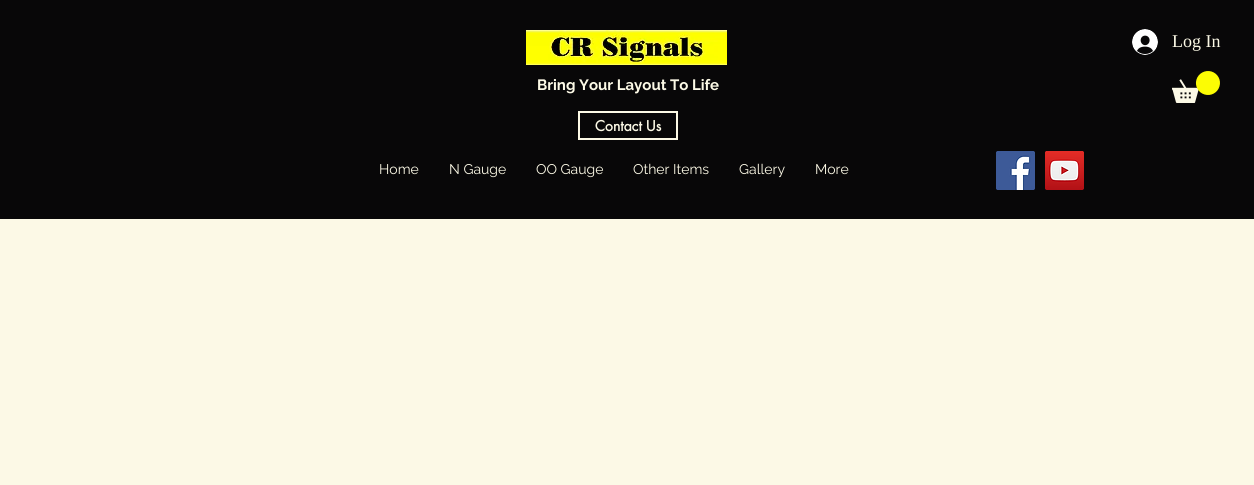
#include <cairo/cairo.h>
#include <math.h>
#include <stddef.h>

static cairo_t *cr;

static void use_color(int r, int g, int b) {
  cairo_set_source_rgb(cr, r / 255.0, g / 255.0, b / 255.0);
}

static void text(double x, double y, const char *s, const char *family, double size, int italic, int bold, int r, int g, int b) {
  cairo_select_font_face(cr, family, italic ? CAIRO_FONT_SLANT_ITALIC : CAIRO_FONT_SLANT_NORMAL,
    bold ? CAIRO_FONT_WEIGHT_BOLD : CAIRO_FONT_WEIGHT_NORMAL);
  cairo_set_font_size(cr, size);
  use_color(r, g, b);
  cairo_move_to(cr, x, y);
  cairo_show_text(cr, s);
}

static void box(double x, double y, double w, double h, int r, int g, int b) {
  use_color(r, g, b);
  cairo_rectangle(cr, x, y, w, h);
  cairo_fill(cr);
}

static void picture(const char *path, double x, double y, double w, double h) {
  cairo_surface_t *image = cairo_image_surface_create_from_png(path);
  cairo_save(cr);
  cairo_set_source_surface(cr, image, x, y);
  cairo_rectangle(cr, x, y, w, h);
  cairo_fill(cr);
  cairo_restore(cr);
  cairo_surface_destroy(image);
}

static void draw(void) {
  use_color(252, 249, 230);
  cairo_paint(cr);
  box(0, 0, 1254, 219, 8, 7, 8);
  picture("img_01.png", 1132, 29, 26, 26);
  picture("img_02.png", 1172, 71, 48, 32);
  picture("img_03.png", 526, 30, 201, 35);
  cairo_rectangle(cr, 579, 112, 98, 27);
  use_color(252, 249, 230);
  cairo_stroke(cr);
  picture("img_04.png", 996, 151, 39, 39);
  picture("img_05.png", 1045, 151, 39, 39);
  text(1172, 47, "Log In", "Liberation Serif", 18, 0, 0, 252, 249, 230);
  text(537, 90, "Bring Your Layout To Life", "Raleway", 15, 0, 1, 252, 249, 230);
  text(595, 131, "Contact Us", "futura", 14, 0, 1, 252, 249, 230);
  text(379, 174, "Home", "Raleway", 14, 0, 0, 252, 249, 230);
  text(449, 174, "N Gauge", "Raleway", 14, 0, 0, 252, 249, 230);
  text(536, 174, "OO Gauge", "Raleway", 14, 0, 0, 252, 249, 230);
  text(633, 174, "Other Items", "Raleway", 14, 0, 0, 252, 249, 230);
  text(739, 174, "Gallery", "Raleway", 14, 0, 0, 252, 249, 230);
  text(815, 174, "More", "Raleway", 14, 0, 0, 252, 249, 230);
}

int main(void) {
  cairo_surface_t *surface = cairo_image_surface_create(CAIRO_FORMAT_RGB24, 1254, 485);
  cr = cairo_create(surface);
  cairo_font_options_t *options = cairo_font_options_create();
  cairo_font_options_set_hint_metrics(options, CAIRO_HINT_METRICS_OFF);
  cairo_font_options_set_hint_style(options, CAIRO_HINT_STYLE_NONE);
  cairo_set_font_options(cr, options);
  cairo_set_miter_limit(cr, 4);
  draw();
  cairo_surface_write_to_png(surface, "out.png");
  cairo_font_options_destroy(options);
  cairo_destroy(cr);
  cairo_surface_destroy(surface);
  return 0;
}
